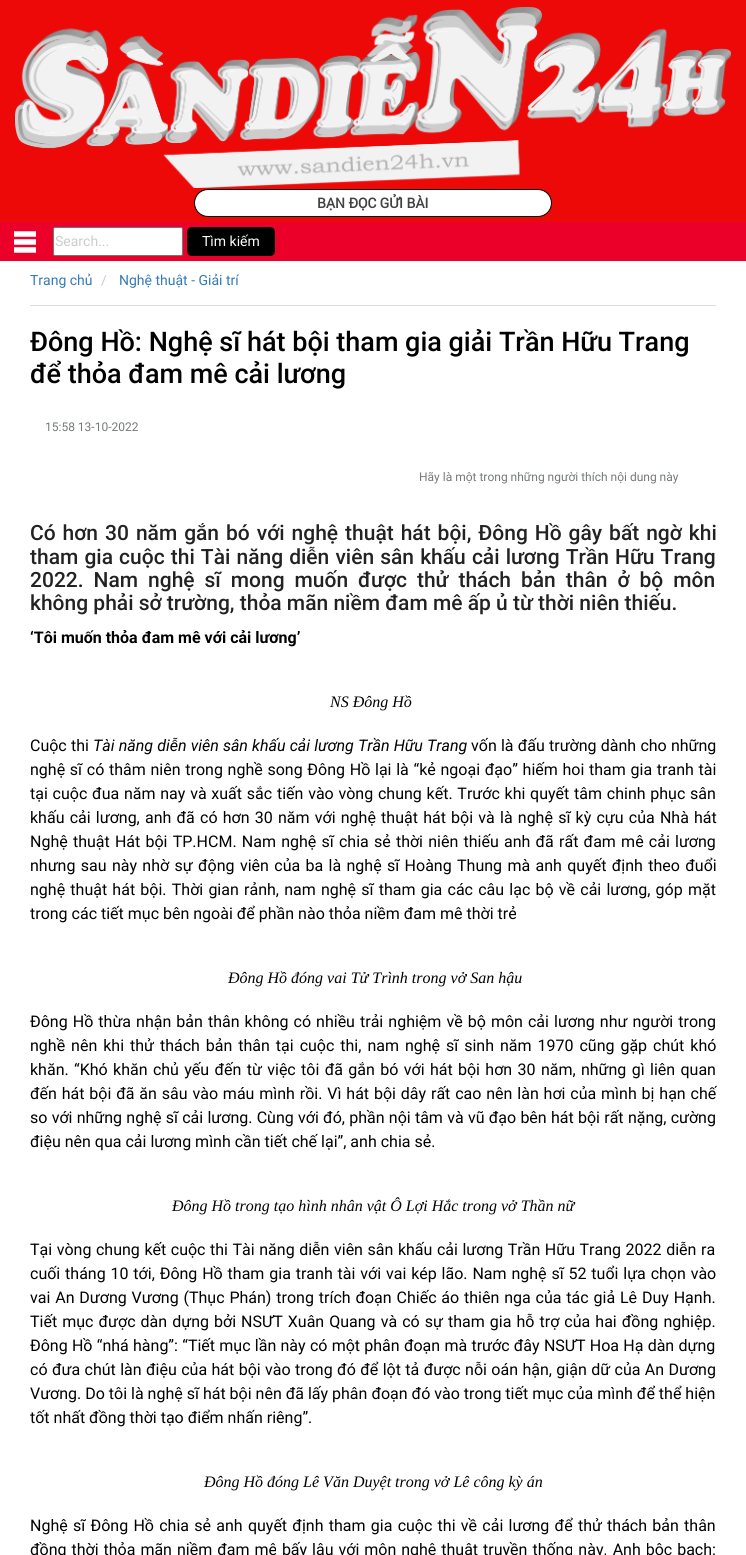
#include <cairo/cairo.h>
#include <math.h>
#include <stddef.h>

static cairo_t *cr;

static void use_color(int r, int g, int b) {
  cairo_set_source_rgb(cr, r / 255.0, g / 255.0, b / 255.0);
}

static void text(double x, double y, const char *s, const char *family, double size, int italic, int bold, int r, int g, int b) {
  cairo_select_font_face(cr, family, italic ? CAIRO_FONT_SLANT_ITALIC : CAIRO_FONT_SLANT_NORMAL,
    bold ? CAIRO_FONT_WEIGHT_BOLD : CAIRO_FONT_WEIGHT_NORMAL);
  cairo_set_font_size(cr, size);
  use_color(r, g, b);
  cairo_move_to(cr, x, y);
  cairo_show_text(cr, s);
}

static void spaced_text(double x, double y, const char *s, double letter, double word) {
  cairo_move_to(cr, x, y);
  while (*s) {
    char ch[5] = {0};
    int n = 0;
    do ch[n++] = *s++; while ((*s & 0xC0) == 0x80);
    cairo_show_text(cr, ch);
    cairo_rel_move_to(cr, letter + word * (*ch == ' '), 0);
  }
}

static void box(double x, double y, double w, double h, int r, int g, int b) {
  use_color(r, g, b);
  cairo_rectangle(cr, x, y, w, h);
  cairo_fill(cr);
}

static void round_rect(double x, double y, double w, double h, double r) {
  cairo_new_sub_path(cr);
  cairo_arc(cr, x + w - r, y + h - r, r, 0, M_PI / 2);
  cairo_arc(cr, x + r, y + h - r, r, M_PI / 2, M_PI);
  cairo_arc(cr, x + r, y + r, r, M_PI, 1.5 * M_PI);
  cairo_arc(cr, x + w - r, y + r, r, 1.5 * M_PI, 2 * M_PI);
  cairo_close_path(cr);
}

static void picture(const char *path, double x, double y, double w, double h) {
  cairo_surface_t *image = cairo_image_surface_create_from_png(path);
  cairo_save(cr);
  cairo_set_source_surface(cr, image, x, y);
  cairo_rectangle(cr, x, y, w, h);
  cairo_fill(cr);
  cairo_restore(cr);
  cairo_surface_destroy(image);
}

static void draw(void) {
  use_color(255, 255, 255);
  cairo_paint(cr);
  box(0, 0, 746, 222, 238, 9, 9);
  picture("img_01.png", 15, 7, 716, 181);
  use_color(255, 255, 255);
  round_rect(194.5, 189.5, 357, 27, 13.5);
  cairo_fill_preserve(cr);
  use_color(0, 0, 0);
  cairo_set_line_width(cr, 1);
  cairo_stroke(cr);
  box(0, 222, 746, 39, 235, 0, 42);
  picture("img_02.png", 14, 231, 22, 22);
  use_color(255, 255, 255);
  round_rect(53.5, 227.5, 129, 28, 1.5);
  cairo_fill_preserve(cr);
  use_color(118, 118, 118);
  cairo_stroke(cr);
  use_color(0, 0, 0);
  round_rect(187, 227, 88, 29, 5);
  cairo_fill(cr);
  box(30, 305, 686, 1, 221, 221, 221);
  text(317, 208, "BẠN ĐỌC GỬI BÀI", "Roboto", 14, 0, 1, 66, 66, 66);
  text(55, 246, "Search...", "Roboto", 14, 0, 0, 204, 204, 204);
  text(202, 246, "Tìm kiếm", "Roboto", 14, 0, 0, 255, 255, 255);
  text(30, 285, "Trang chủ", "Roboto", 14, 0, 0, 51, 122, 183);
  text(101, 285, "/", "Roboto", 14, 0, 0, 204, 204, 204);
  text(119, 285, "Nghệ thuật - Giải trí", "Roboto", 14, 0, 0, 51, 122, 183);
  text(30, 351, "Đông Hồ: Nghệ sĩ hát bội tham gia giải Trần Hữu Trang", "Roboto Medium", 27, 0, 0, 0, 0, 0);
  text(30, 383, "để thỏa đam mê cải lương", "Roboto Medium", 27, 0, 0, 0, 0, 0);
  text(45, 431, "15:58 13-10-2022", "Roboto", 12, 0, 0, 117, 121, 122);
  text(419, 481, "Hãy là một trong những người thích nội dung này", "Roboto", 12, 0, 0, 117, 121, 122);
  cairo_select_font_face(cr, "Roboto Medium", CAIRO_FONT_SLANT_NORMAL, CAIRO_FONT_WEIGHT_NORMAL);
  cairo_set_font_size(cr, 21);
  use_color(34, 34, 34);
  spaced_text(30, 540, "Có hơn 30 năm gắn bó với nghệ thuật hát bội, Đông Hồ gây bất ngờ khi", 0, 1.75);
  spaced_text(30, 564, "tham gia cuộc thi Tài năng diễn viên sân khấu cải lương Trần Hữu Trang", 0, 0.9);
  spaced_text(30, 587, "2022. Nam nghệ sĩ mong muốn được thử thách bản thân ở bộ môn", 0, 4.75);
  text(30, 610, "không phải sở trường, thỏa mãn niềm đam mê ấp ủ từ thời niên thiếu.", "Roboto Medium", 21, 0, 0, 34, 34, 34);
  text(30, 643, "‘Tôi muốn thỏa đam mê với cải lương’", "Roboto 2", 16, 0, 1, 0, 0, 0);
  text(330, 707, "NS Đông Hồ", "Liberation Serif", 16, 1, 0, 0, 0, 0);
  cairo_select_font_face(cr, "Roboto", CAIRO_FONT_SLANT_NORMAL, CAIRO_FONT_WEIGHT_NORMAL);
  spaced_text(30, 751, "Cuộc thi", 0, 0.25);
  cairo_select_font_face(cr, "Roboto", CAIRO_FONT_SLANT_ITALIC, CAIRO_FONT_WEIGHT_NORMAL);
  spaced_text(93, 751, "Tài năng diễn viên sân khấu cải lương Trần Hữu Trang", 0, 0.25);
  cairo_select_font_face(cr, "Roboto", CAIRO_FONT_SLANT_NORMAL, CAIRO_FONT_WEIGHT_NORMAL);
  spaced_text(471, 751, "vốn là đấu trường dành cho những", 0, 0.25);
  spaced_text(30, 775, "nghệ sĩ có thâm niên trong nghề song Đông Hồ lại là “kẻ ngoại đạo” hiếm hoi tham gia tranh tài", 0, 0.75);
  spaced_text(30, 799, "tại cuộc đua năm nay và xuất sắc tiến vào vòng chung kết. Trước khi quyết tâm chinh phục sân", 0, 0.8);
  spaced_text(30, 823, "khấu cải lương, anh đã có hơn 30 năm với nghệ thuật hát bội và là nghệ sĩ kỳ cựu của Nhà hát", 0, 1.25);
  spaced_text(30, 847, "Nghệ thuật Hát bội TP.HCM. Nam nghệ sĩ chia sẻ thời niên thiếu anh đã rất đam mê cải lương", 0, 1.25);
  spaced_text(30, 871, "nhưng sau này nhờ sự động viên của ba là nghệ sĩ Hoàng Thung mà anh quyết định theo đuổi", 0, 1.4);
  spaced_text(30, 895, "nghệ thuật hát bội. Thời gian rảnh, nam nghệ sĩ tham gia các câu lạc bộ về cải lương, góp mặt", 0, 1.25);
  text(30, 919, "trong các tiết mục bên ngoài để phần nào thỏa niềm đam mê thời trẻ", "Roboto", 16, 0, 0, 0, 0, 0);
  text(228, 983, "Đông Hồ đóng vai Tử Trình trong vở San hậu", "Liberation Serif", 16, 1, 0, 0, 0, 0);
  cairo_select_font_face(cr, "Roboto", CAIRO_FONT_SLANT_NORMAL, CAIRO_FONT_WEIGHT_NORMAL);
  spaced_text(30, 1027, "Đông Hồ thừa nhận bản thân không có nhiều trải nghiệm về bộ môn cải lương như người trong", 0, 1.1);
  spaced_text(30, 1051, "nghề nên khi thử thách bản thân tại cuộc thi, nam nghệ sĩ sinh năm 1970 cũng gặp chút khó", 0, 2);
  spaced_text(30, 1075, "khăn. “Khó khăn chủ yếu đến từ việc tôi đã gắn bó với hát bội hơn 30 năm, những gì liên quan", 0, 1.4);
  spaced_text(30, 1099, "đến hát bội đã ăn sâu vào máu mình rồi. Vì hát bội dây rất cao nên làn hơi của mình bị hạn chế", 0, 0.9);
  spaced_text(30, 1123, "so với những nghệ sĩ cải lương. Cùng với đó, phần nội tâm và vũ đạo bên hát bội rất nặng, cường", 0, 0.3);
  text(30, 1147, "điệu nên qua cải lương mình cần tiết chế lại”, anh chia sẻ.", "Roboto", 16, 0, 0, 0, 0, 0);
  text(172, 1211, "Đông Hồ trong tạo hình nhân vật Ô Lợi Hắc trong vở Thần nữ", "Liberation Serif", 16, 1, 0, 0, 0, 0);
  cairo_select_font_face(cr, "Roboto", CAIRO_FONT_SLANT_NORMAL, CAIRO_FONT_WEIGHT_NORMAL);
  spaced_text(30, 1255, "Tại vòng chung kết cuộc thi Tài năng diễn viên sân khấu cải lương Trần Hữu Trang 2022 diễn ra", 0, 0.6);
  spaced_text(30, 1279, "cuối tháng 10 tới, Đông Hồ tham gia tranh tài với vai kép lão. Nam nghệ sĩ 52 tuổi lựa chọn vào", 0, 0.9);
  spaced_text(30, 1303, "vai An Dương Vương (Thục Phán) trong trích đoạn Chiếc áo thiên nga của tác giả Lê Duy Hạnh.", 0, 0.9);
  spaced_text(30, 1327, "Tiết mục được dàn dựng bởi NSƯT Xuân Quang và có sự tham gia hỗ trợ của hai đồng nghiệp.", 0, 1.1);
  spaced_text(30, 1351, "Đông Hồ “nhá hàng”: “Tiết mục lần này có một phân đoạn mà trước đây NSƯT Hoa Hạ dàn dựng", 0, 0.3);
  spaced_text(30, 1375, "có đưa chút làn điệu của hát bội vào trong đó để lột tả được nỗi oán hận, giận dữ của An Dương", 0, 0.45);
  text(30, 1399, "Vương. Do tôi là nghệ sĩ hát bội nên đã lấy phân đoạn đó vào trong tiết mục của mình để thể hiện", "Roboto", 16, 0, 0, 0, 0, 0);
  text(30, 1423, "tốt nhất đồng thời tạo điểm nhấn riêng”.", "Roboto", 16, 0, 0, 0, 0, 0);
  text(204, 1487, "Đông Hồ đóng Lê Văn Duyệt trong vở Lê công kỳ án", "Liberation Serif", 16, 1, 0, 0, 0, 0);
  cairo_select_font_face(cr, "Roboto", CAIRO_FONT_SLANT_NORMAL, CAIRO_FONT_WEIGHT_NORMAL);
  spaced_text(30, 1531, "Nghệ sĩ Đông Hồ chia sẻ anh quyết định tham gia cuộc thi về cải lương để thử thách bản thân", 0, 1.3);
  spaced_text(30, 1555, "đồng thời thỏa mãn niềm đam mê bấy lâu với môn nghệ thuật truyền thống này. Anh bộc bạch:", 0, 1);
}

int main(void) {
  cairo_surface_t *surface = cairo_image_surface_create(CAIRO_FORMAT_RGB24, 746, 1555);
  cr = cairo_create(surface);
  cairo_font_options_t *options = cairo_font_options_create();
  cairo_font_options_set_hint_metrics(options, CAIRO_HINT_METRICS_OFF);
  cairo_font_options_set_hint_style(options, CAIRO_HINT_STYLE_NONE);
  cairo_set_font_options(cr, options);
  cairo_set_miter_limit(cr, 4);
  draw();
  cairo_surface_write_to_png(surface, "out.png");
  cairo_font_options_destroy(options);
  cairo_destroy(cr);
  cairo_surface_destroy(surface);
  return 0;
}
